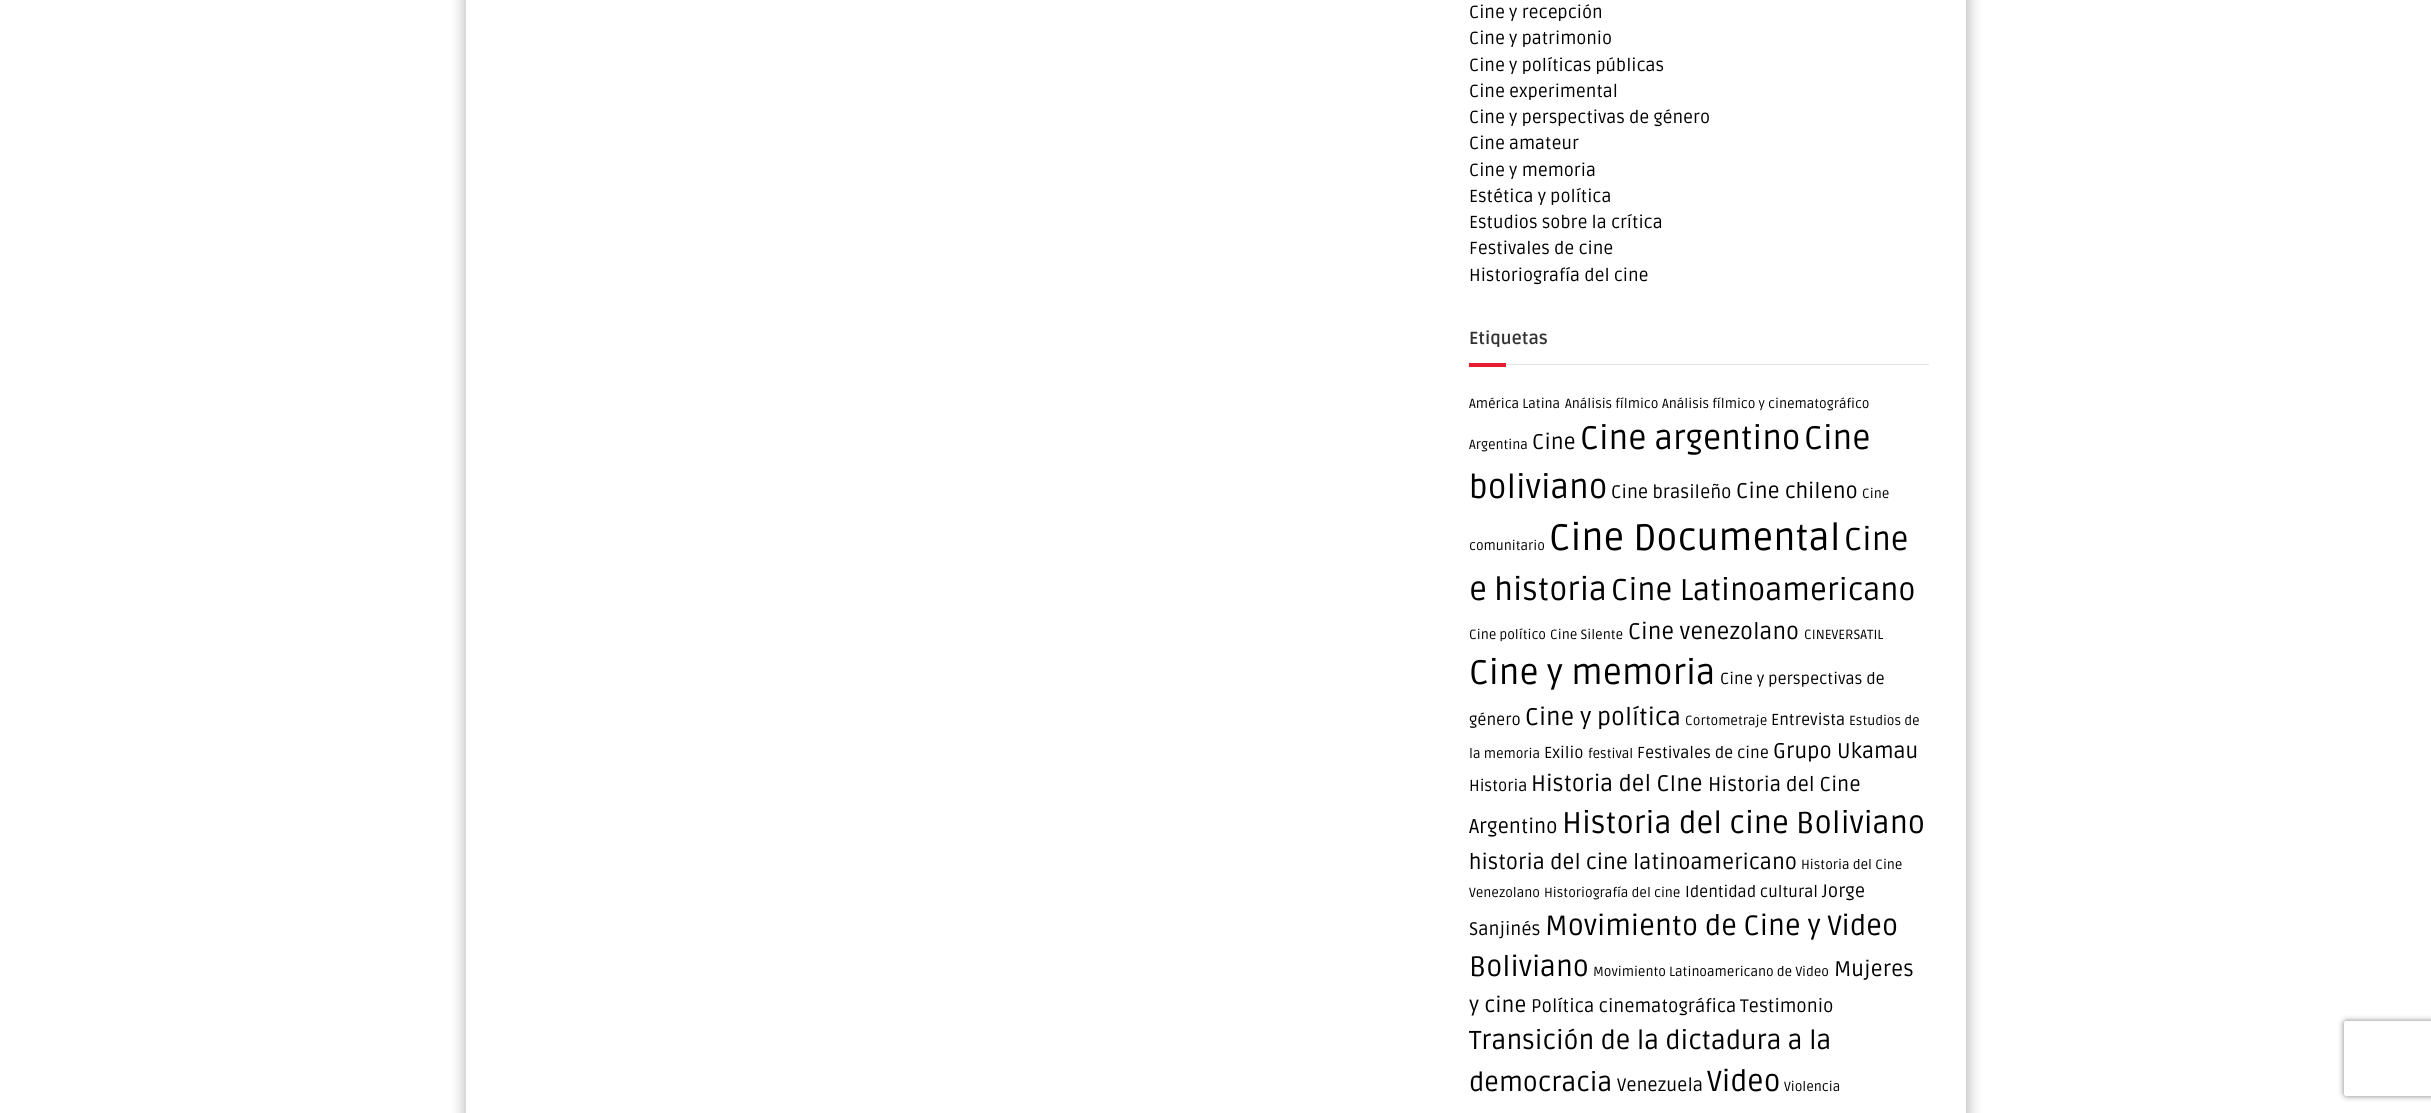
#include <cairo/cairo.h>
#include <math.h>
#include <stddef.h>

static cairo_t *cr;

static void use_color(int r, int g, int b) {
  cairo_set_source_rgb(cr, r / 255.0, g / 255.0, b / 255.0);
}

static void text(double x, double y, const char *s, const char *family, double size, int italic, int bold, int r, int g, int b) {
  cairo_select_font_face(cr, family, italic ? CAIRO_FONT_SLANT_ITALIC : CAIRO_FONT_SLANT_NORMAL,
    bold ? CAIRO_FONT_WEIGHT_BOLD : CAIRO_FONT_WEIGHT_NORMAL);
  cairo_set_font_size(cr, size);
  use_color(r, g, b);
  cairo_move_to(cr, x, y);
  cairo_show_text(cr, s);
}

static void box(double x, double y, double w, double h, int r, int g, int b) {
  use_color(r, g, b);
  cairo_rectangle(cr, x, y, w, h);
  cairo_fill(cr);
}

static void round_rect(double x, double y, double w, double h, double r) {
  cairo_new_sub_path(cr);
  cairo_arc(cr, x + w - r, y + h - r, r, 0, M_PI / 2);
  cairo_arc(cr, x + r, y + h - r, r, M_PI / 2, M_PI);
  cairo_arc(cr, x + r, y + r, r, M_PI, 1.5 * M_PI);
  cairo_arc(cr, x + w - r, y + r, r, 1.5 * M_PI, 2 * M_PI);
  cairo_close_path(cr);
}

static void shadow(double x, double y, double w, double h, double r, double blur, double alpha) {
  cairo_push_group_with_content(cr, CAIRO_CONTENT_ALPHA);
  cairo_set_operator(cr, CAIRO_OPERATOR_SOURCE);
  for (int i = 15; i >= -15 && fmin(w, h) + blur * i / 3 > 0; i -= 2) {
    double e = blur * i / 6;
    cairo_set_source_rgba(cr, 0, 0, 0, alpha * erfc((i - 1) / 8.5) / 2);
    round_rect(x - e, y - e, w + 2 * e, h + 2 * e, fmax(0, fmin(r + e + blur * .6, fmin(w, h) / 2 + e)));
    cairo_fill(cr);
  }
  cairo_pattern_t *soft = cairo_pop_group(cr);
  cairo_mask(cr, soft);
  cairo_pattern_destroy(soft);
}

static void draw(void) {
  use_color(255, 255, 255);
  cairo_paint(cr);
  use_color(0, 0, 0);
  shadow(465, -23, 1503, 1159, 0, 7.5, 0.3);
  box(466, 0, 1500, 1113, 255, 255, 255);
  box(1469, 363, 37, 4, 230, 29, 48);
  box(1506, 364, 423, 1, 225, 225, 225);
  cairo_save(cr);
  cairo_set_fill_rule(cr, CAIRO_FILL_RULE_EVEN_ODD);
  cairo_new_path(cr);
  cairo_move_to(cr, 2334, 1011);
  cairo_line_to(cr, 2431, 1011);
  cairo_line_to(cr, 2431, 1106);
  cairo_line_to(cr, 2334, 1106);
  cairo_close_path(cr);
  cairo_move_to(cr, 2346.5, 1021);
  cairo_line_to(cr, 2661.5, 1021);
  cairo_curve_to(cr, 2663, 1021, 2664, 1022, 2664, 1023.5);
  cairo_line_to(cr, 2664, 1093.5);
  cairo_curve_to(cr, 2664, 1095, 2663, 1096, 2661.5, 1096);
  cairo_line_to(cr, 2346.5, 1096);
  cairo_curve_to(cr, 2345, 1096, 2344, 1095, 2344, 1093.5);
  cairo_line_to(cr, 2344, 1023.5);
  cairo_curve_to(cr, 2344, 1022, 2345, 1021, 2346.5, 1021);
  cairo_close_path(cr);
  cairo_clip(cr);
  use_color(128, 128, 128);
  shadow(2344, 1021, 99, 75, 2.5, 3, 1);
  cairo_restore(cr);
  text(1469, 18, "Cine y recepción", "Ruda", 17.5, 0, 0, 0, 0, 0);
  text(1469, 44, "Cine y patrimonio", "Ruda", 17.5, 0, 0, 0, 0, 0);
  text(1469, 71, "Cine y políticas públicas", "Ruda", 17.5, 0, 0, 0, 0, 0);
  text(1469, 97, "Cine experimental", "Ruda", 17.5, 0, 0, 0, 0, 0);
  text(1469, 123, "Cine y perspectivas de género", "Ruda", 17.5, 0, 0, 0, 0, 0);
  text(1469, 149, "Cine amateur", "Ruda", 17.5, 0, 0, 0, 0, 0);
  text(1469, 176, "Cine y memoria", "Ruda", 17.5, 0, 0, 0, 0, 0);
  text(1469, 202, "Estética y política", "Ruda", 17.5, 0, 0, 0, 0, 0);
  text(1469, 228, "Estudios sobre la crítica", "Ruda", 17.5, 0, 0, 0, 0, 0);
  text(1469, 254, "Festivales de cine", "Ruda", 17.5, 0, 0, 0, 0, 0);
  text(1469, 281, "Historiografía del cine", "Ruda", 17.5, 0, 0, 0, 0, 0);
  text(1469, 344, "Etiquetas", "Ruda", 17.5, 0, 1, 51, 51, 51);
  text(1469, 408, "América Latina", "Ruda", 13.3, 0, 0, 0, 0, 0);
  text(1565, 408, "Análisis fílmico", "Ruda", 13.3, 0, 0, 0, 0, 0);
  text(1662, 408, "Análisis fílmico y cinematográfico", "Ruda", 13.3, 0, 0, 0, 0, 0);
  text(1469, 449, "Argentina", "Ruda", 13.3, 0, 0, 0, 0, 0);
  text(1532, 449, "Cine", "Ruda", 21.25, 0, 0, 0, 0, 0);
  text(1580, 449, "Cine argentino", "Ruda", 32.5, 0, 0, 0, 0, 0);
  text(1804, 449, "Cine", "Ruda", 32.5, 0, 0, 0, 0, 0);
  text(1469, 498, "boliviano", "Ruda", 32.5, 0, 0, 0, 0, 0);
  text(1611, 498, "Cine brasileño", "Ruda", 18.1, 0, 0, 0, 0, 0);
  text(1736, 498, "Cine chileno", "Ruda", 21.25, 0, 0, 0, 0, 0);
  text(1862, 498, "Cine", "Ruda", 13.3, 0, 0, 0, 0, 0);
  text(1469, 550, "comunitario", "Ruda", 13.3, 0, 0, 0, 0, 0);
  text(1549, 550, "Cine Documental", "Ruda", 36.75, 0, 0, 0, 0, 0);
  text(1844, 550, "Cine", "Ruda", 31.5, 0, 0, 0, 0, 0);
  text(1469, 600, "e historia", "Ruda", 31.5, 0, 0, 0, 0, 0);
  text(1611, 600, "Cine Latinoamericano", "Ruda", 30, 0, 0, 0, 0, 0);
  text(1469, 639, "Cine político", "Ruda", 13.3, 0, 0, 0, 0, 0);
  text(1550, 639, "Cine Silente", "Ruda", 13.3, 0, 0, 0, 0, 0);
  text(1628, 639, "Cine venezolano", "Ruda", 22.5, 0, 0, 0, 0, 0);
  text(1804, 639, "CINEVERSATIL", "Ruda", 13.3, 0, 0, 0, 0, 0);
  text(1469, 684, "Cine y memoria", "Ruda", 34, 0, 0, 0, 0, 0);
  text(1720, 684, "Cine y perspectivas de", "Ruda", 16, 0, 0, 0, 0, 0);
  text(1469, 725, "género", "Ruda", 16, 0, 0, 0, 0, 0);
  text(1525, 725, "Cine y política", "Ruda", 24, 0, 0, 0, 0, 0);
  text(1685, 725, "Cortometraje", "Ruda", 13.3, 0, 0, 0, 0, 0);
  text(1771, 725, "Entrevista", "Ruda", 16, 0, 0, 0, 0, 0);
  text(1849, 725, "Estudios de", "Ruda", 13.3, 0, 0, 0, 0, 0);
  text(1469, 758, "la memoria", "Ruda", 13.3, 0, 0, 0, 0, 0);
  text(1544, 758, "Exilio", "Ruda", 16, 0, 0, 0, 0, 0);
  text(1588, 758, "festival", "Ruda", 13.3, 0, 0, 0, 0, 0);
  text(1637, 758, "Festivales de cine", "Ruda", 16, 0, 0, 0, 0, 0);
  text(1773, 758, "Grupo Ukamau", "Ruda", 21.25, 0, 0, 0, 0, 0);
  text(1469, 791, "Historia", "Ruda", 16, 0, 0, 0, 0, 0);
  text(1531, 791, "Historia del CIne", "Ruda", 22.5, 0, 0, 0, 0, 0);
  text(1708, 791, "Historia del Cine", "Ruda", 20, 0, 0, 0, 0, 0);
  text(1469, 833, "Argentino", "Ruda", 20, 0, 0, 0, 0, 0);
  text(1562, 833, "Historia del cine Boliviano", "Ruda", 30, 0, 0, 0, 0, 0);
  text(1469, 869, "historia del cine latinoamericano", "Ruda", 21.25, 0, 0, 0, 0, 0);
  text(1801, 869, "Historia del Cine", "Ruda", 13.3, 0, 0, 0, 0, 0);
  text(1469, 897, "Venezolano", "Ruda", 13.3, 0, 0, 0, 0, 0);
  text(1544, 897, "Historiografía del cine", "Ruda", 13.3, 0, 0, 0, 0, 0);
  text(1685, 897, "Identidad cultural", "Ruda", 16, 0, 0, 0, 0, 0);
  text(1822, 897, "Jorge", "Ruda", 18.1, 0, 0, 0, 0, 0);
  text(1469, 935, "Sanjinés", "Ruda", 18.1, 0, 0, 0, 0, 0);
  text(1545, 935, "Movimiento de Cine y Video", "Ruda", 27.9, 0, 0, 0, 0, 0);
  text(1469, 976, "Boliviano", "Ruda", 27.9, 0, 0, 0, 0, 0);
  text(1593, 976, "Movimiento Latinoamericano de Video", "Ruda", 13.3, 0, 0, 0, 0, 0);
  text(1834, 976, "Mujeres", "Ruda", 21.25, 0, 0, 0, 0, 0);
  text(1469, 1012, "y cine", "Ruda", 21.25, 0, 0, 0, 0, 0);
  text(1531, 1012, "Política cinematográfica", "Ruda", 18.1, 0, 0, 0, 0, 0);
  text(1740, 1012, "Testimonio", "Ruda", 18.1, 0, 0, 0, 0, 0);
  text(1469, 1049, "Transición de la dictadura a la", "Ruda", 26, 0, 0, 0, 0, 0);
  text(1469, 1091, "democracia", "Ruda", 26, 0, 0, 0, 0, 0);
  text(1617, 1091, "Venezuela", "Ruda", 18.1, 0, 0, 0, 0, 0);
  text(1707, 1091, "Video", "Ruda", 29, 0, 0, 0, 0, 0);
  text(1784, 1091, "Violencia", "Ruda", 13.3, 0, 0, 0, 0, 0);
}

int main(void) {
  cairo_surface_t *surface = cairo_image_surface_create(CAIRO_FORMAT_RGB24, 2431, 1113);
  cr = cairo_create(surface);
  cairo_font_options_t *options = cairo_font_options_create();
  cairo_font_options_set_hint_metrics(options, CAIRO_HINT_METRICS_OFF);
  cairo_font_options_set_hint_style(options, CAIRO_HINT_STYLE_NONE);
  cairo_set_font_options(cr, options);
  cairo_set_miter_limit(cr, 4);
  draw();
  cairo_surface_write_to_png(surface, "out.png");
  cairo_font_options_destroy(options);
  cairo_destroy(cr);
  cairo_surface_destroy(surface);
  return 0;
}
